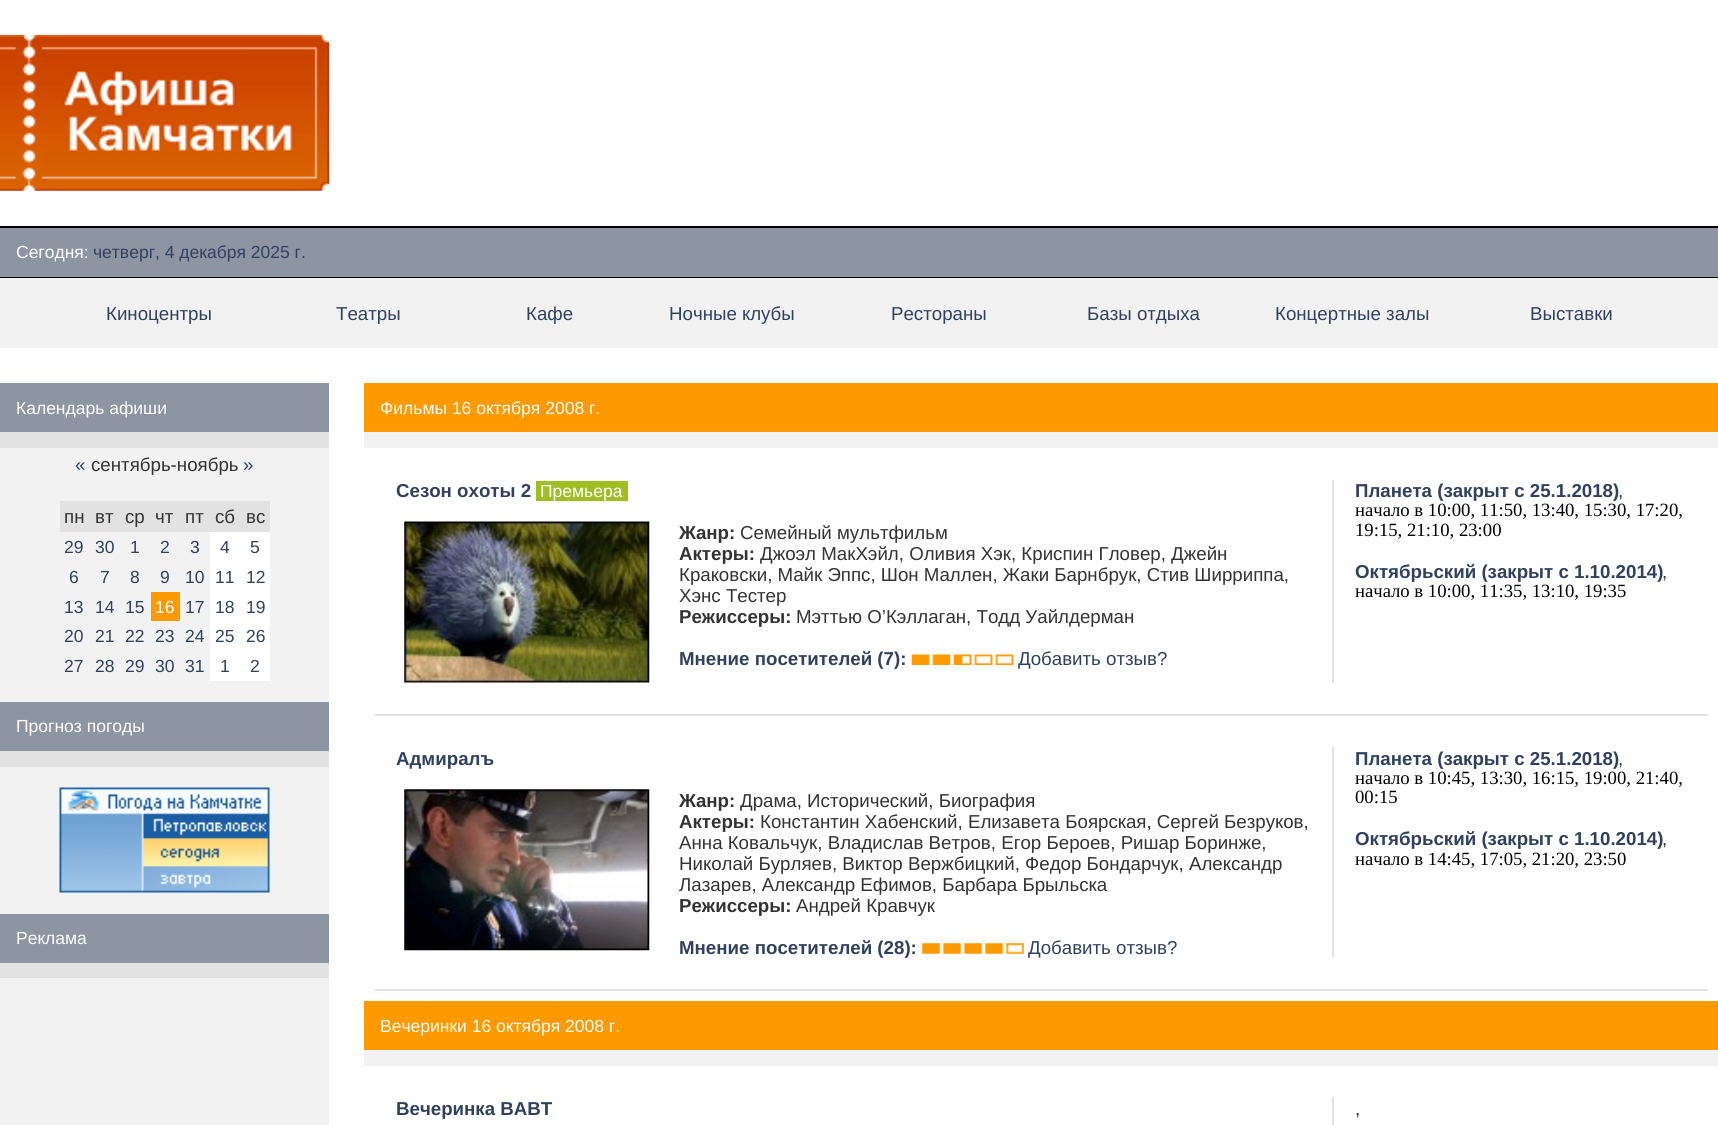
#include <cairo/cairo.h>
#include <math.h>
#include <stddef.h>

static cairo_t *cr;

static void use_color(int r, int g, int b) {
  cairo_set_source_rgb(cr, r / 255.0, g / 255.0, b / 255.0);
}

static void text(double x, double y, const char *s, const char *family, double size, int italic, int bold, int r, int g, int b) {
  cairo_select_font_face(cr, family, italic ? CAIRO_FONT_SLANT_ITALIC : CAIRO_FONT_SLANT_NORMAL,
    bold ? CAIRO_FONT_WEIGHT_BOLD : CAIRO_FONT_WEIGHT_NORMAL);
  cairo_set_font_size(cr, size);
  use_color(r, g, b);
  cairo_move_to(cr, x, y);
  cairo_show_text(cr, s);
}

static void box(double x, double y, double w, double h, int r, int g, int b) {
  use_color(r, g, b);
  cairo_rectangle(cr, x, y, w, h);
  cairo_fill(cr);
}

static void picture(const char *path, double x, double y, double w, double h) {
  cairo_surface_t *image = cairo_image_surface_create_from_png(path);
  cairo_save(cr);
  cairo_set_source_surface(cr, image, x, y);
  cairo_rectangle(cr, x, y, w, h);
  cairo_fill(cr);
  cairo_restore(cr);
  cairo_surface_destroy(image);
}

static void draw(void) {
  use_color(255, 255, 255);
  cairo_paint(cr);
  picture("img_01.png", 0, 35, 329, 156);
  box(0, 226, 1718, 2, 0, 0, 0);
  box(0, 228, 1718, 49, 141, 149, 162);
  box(0, 277, 1718, 1, 0, 0, 0);
  box(0, 278, 1718, 70, 242, 242, 242);
  box(0, 448, 329, 677, 242, 242, 242);
  box(0, 383, 329, 49, 141, 149, 162);
  box(0, 432, 329, 16, 226, 226, 226);
  box(60, 501, 210, 31, 226, 226, 226);
  box(210, 532, 60, 30, 255, 255, 255);
  box(210, 562, 60, 30, 255, 255, 255);
  box(151, 592, 29, 29, 255, 153, 0);
  box(210, 592, 60, 29, 255, 255, 255);
  box(210, 621, 60, 30, 255, 255, 255);
  box(210, 651, 60, 30, 255, 255, 255);
  box(0, 702, 329, 49, 141, 149, 162);
  box(0, 751, 329, 16, 226, 226, 226);
  picture("img_02.png", 59, 787, 211, 106);
  box(0, 914, 329, 49, 141, 149, 162);
  box(0, 963, 329, 15, 226, 226, 226);
  box(364, 383, 1354, 49, 255, 153, 0);
  box(364, 432, 1354, 16, 242, 242, 242);
  box(536, 481, 92, 20, 159, 190, 33);
  box(1332, 480, 2, 203, 226, 226, 226);
  picture("img_03.png", 404, 521, 246, 162);
  picture("img_04.png", 911, 654, 103, 11);
  box(375, 714, 1333, 2, 226, 226, 226);
  box(1332, 747, 2, 210, 226, 226, 226);
  picture("img_05.png", 404, 789, 246, 162);
  picture("img_06.png", 922, 943, 102, 11);
  box(375, 989, 1333, 2, 226, 226, 226);
  box(364, 1001, 1354, 49, 255, 153, 0);
  box(364, 1050, 1354, 16, 242, 242, 242);
  box(1332, 1097, 2, 28, 226, 226, 226);
  text(16, 258, "Сегодня:", "Liberation Sans", 17.5, 0, 0, 255, 255, 255);
  text(93, 258, "четверг, 4 декабря 2025 г.", "Liberation Sans", 17.5, 0, 0, 48, 65, 96);
  text(106, 320, "Киноцентры", "Liberation Sans", 18.7, 0, 0, 48, 65, 96);
  text(336, 320, "Театры", "Liberation Sans", 18.7, 0, 0, 48, 65, 96);
  text(526, 320, "Кафе", "Liberation Sans", 18.7, 0, 0, 48, 65, 96);
  text(669, 320, "Ночные клубы", "Liberation Sans", 18.7, 0, 0, 48, 65, 96);
  text(891, 320, "Рестораны", "Liberation Sans", 18.7, 0, 0, 48, 65, 96);
  text(1087, 320, "Базы отдыха", "Liberation Sans", 18.7, 0, 0, 48, 65, 96);
  text(1275, 320, "Концертные залы", "Liberation Sans", 18.7, 0, 0, 48, 65, 96);
  text(1530, 320, "Выставки", "Liberation Sans", 18.7, 0, 0, 48, 65, 96);
  text(16, 414, "Календарь афиши", "Liberation Sans", 17.5, 0, 0, 255, 255, 255);
  text(75, 471, "«", "Liberation Sans", 18.7, 0, 0, 48, 65, 96);
  text(91, 471, "сентябрь-ноябрь", "Liberation Sans", 18.7, 0, 0, 51, 51, 51);
  text(243, 471, "»", "Liberation Sans", 18.7, 0, 0, 48, 65, 96);
  text(64, 523, "пн", "Liberation Sans", 18.7, 0, 0, 51, 51, 51);
  text(95, 523, "вт", "Liberation Sans", 18.7, 0, 0, 51, 51, 51);
  text(125, 523, "ср", "Liberation Sans", 18.7, 0, 0, 51, 51, 51);
  text(155, 523, "чт", "Liberation Sans", 18.7, 0, 0, 51, 51, 51);
  text(185, 523, "пт", "Liberation Sans", 18.7, 0, 0, 51, 51, 51);
  text(215, 523, "сб", "Liberation Sans", 18.7, 0, 0, 51, 51, 51);
  text(246, 523, "вс", "Liberation Sans", 18.7, 0, 0, 51, 51, 51);
  text(64, 553, "29", "Liberation Sans", 17.5, 0, 0, 48, 65, 96);
  text(95, 553, "30", "Liberation Sans", 17.5, 0, 0, 48, 65, 96);
  text(130, 553, "1", "Liberation Sans", 17.5, 0, 0, 48, 65, 96);
  text(160, 553, "2", "Liberation Sans", 17.5, 0, 0, 48, 65, 96);
  text(190, 553, "3", "Liberation Sans", 17.5, 0, 0, 48, 65, 96);
  text(220, 553, "4", "Liberation Sans", 17.5, 0, 0, 48, 65, 96);
  text(250, 553, "5", "Liberation Sans", 17.5, 0, 0, 48, 65, 96);
  text(69, 583, "6", "Liberation Sans", 17.5, 0, 0, 48, 65, 96);
  text(100, 583, "7", "Liberation Sans", 17.5, 0, 0, 48, 65, 96);
  text(130, 583, "8", "Liberation Sans", 17.5, 0, 0, 48, 65, 96);
  text(160, 583, "9", "Liberation Sans", 17.5, 0, 0, 48, 65, 96);
  text(185, 583, "10", "Liberation Sans", 17.5, 0, 0, 48, 65, 96);
  text(215, 583, "11", "Liberation Sans", 17.5, 0, 0, 48, 65, 96);
  text(246, 583, "12", "Liberation Sans", 17.5, 0, 0, 48, 65, 96);
  text(64, 613, "13", "Liberation Sans", 17.5, 0, 0, 48, 65, 96);
  text(95, 613, "14", "Liberation Sans", 17.5, 0, 0, 48, 65, 96);
  text(125, 613, "15", "Liberation Sans", 17.5, 0, 0, 48, 65, 96);
  text(155, 613, "16", "Liberation Sans", 17.5, 0, 0, 255, 255, 255);
  text(185, 613, "17", "Liberation Sans", 17.5, 0, 0, 48, 65, 96);
  text(215, 613, "18", "Liberation Sans", 17.5, 0, 0, 48, 65, 96);
  text(246, 613, "19", "Liberation Sans", 17.5, 0, 0, 48, 65, 96);
  text(64, 642, "20", "Liberation Sans", 17.5, 0, 0, 48, 65, 96);
  text(95, 642, "21", "Liberation Sans", 17.5, 0, 0, 48, 65, 96);
  text(125, 642, "22", "Liberation Sans", 17.5, 0, 0, 48, 65, 96);
  text(155, 642, "23", "Liberation Sans", 17.5, 0, 0, 48, 65, 96);
  text(185, 642, "24", "Liberation Sans", 17.5, 0, 0, 48, 65, 96);
  text(215, 642, "25", "Liberation Sans", 17.5, 0, 0, 48, 65, 96);
  text(246, 642, "26", "Liberation Sans", 17.5, 0, 0, 48, 65, 96);
  text(64, 672, "27", "Liberation Sans", 17.5, 0, 0, 48, 65, 96);
  text(95, 672, "28", "Liberation Sans", 17.5, 0, 0, 48, 65, 96);
  text(125, 672, "29", "Liberation Sans", 17.5, 0, 0, 48, 65, 96);
  text(155, 672, "30", "Liberation Sans", 17.5, 0, 0, 48, 65, 96);
  text(185, 672, "31", "Liberation Sans", 17.5, 0, 0, 48, 65, 96);
  text(220, 672, "1", "Liberation Sans", 17.5, 0, 0, 48, 65, 96);
  text(250, 672, "2", "Liberation Sans", 17.5, 0, 0, 48, 65, 96);
  text(16, 732, "Прогноз погоды", "Liberation Sans", 17.5, 0, 0, 255, 255, 255);
  text(16, 944, "Реклама", "Liberation Sans", 17.5, 0, 0, 255, 255, 255);
  text(380, 414, "Фильмы 16 октября 2008 г.", "Liberation Sans", 17.5, 0, 0, 255, 255, 255);
  text(396, 497, "Сезон охоты 2", "Liberation Sans", 18.7, 0, 1, 48, 65, 96);
  text(540, 497, "Премьера", "Liberation Sans", 17.5, 0, 0, 255, 255, 255);
  text(1355, 497, "Планета (закрыт с 25.1.2018)", "Liberation Sans", 18.7, 0, 1, 48, 65, 96);
  text(1618, 497, ",", "Liberation Sans", 18.7, 0, 0, 51, 51, 51);
  text(1355, 516, "начало в 10:00, 11:50, 13:40, 15:30, 17:20,", "Liberation Serif", 18.7, 0, 0, 0, 0, 0);
  text(1355, 536, "19:15, 21:10, 23:00", "Liberation Serif", 18.7, 0, 0, 0, 0, 0);
  text(1355, 578, "Октябрьский (закрыт с 1.10.2014)", "Liberation Sans", 18.7, 0, 1, 48, 65, 96);
  text(1662, 578, ",", "Liberation Sans", 18.7, 0, 0, 51, 51, 51);
  text(1355, 597, "начало в 10:00, 11:35, 13:10, 19:35", "Liberation Serif", 18.7, 0, 0, 0, 0, 0);
  text(679, 539, "Жанр:", "Liberation Sans", 18.7, 0, 1, 51, 51, 51);
  text(740, 539, "Семейный мультфильм", "Liberation Sans", 18.7, 0, 0, 51, 51, 51);
  text(679, 560, "Актеры:", "Liberation Sans", 18.7, 0, 1, 51, 51, 51);
  text(760, 560, "Джоэл МакХэйл, Оливия Хэк, Криспин Гловер, Джейн", "Liberation Sans", 18.7, 0, 0, 51, 51, 51);
  text(679, 581, "Краковски, Майк Эппс, Шон Маллен, Жаки Барнбрук, Стив Ширриппа,", "Liberation Sans", 18.7, 0, 0, 51, 51, 51);
  text(679, 602, "Хэнс Тестер", "Liberation Sans", 18.7, 0, 0, 51, 51, 51);
  text(679, 623, "Режиссеры:", "Liberation Sans", 18.7, 0, 1, 51, 51, 51);
  text(796, 623, "Мэттью О’Кэллаган, Тодд Уайлдерман", "Liberation Sans", 18.7, 0, 0, 51, 51, 51);
  text(679, 665, "Мнение посетителей (7):", "Liberation Sans", 18.7, 0, 1, 48, 65, 96);
  text(1018, 665, "Добавить отзыв?", "Liberation Sans", 18.7, 0, 0, 48, 65, 96);
  text(396, 765, "Адмиралъ", "Liberation Sans", 18.7, 0, 1, 48, 65, 96);
  text(1355, 765, "Планета (закрыт с 25.1.2018)", "Liberation Sans", 18.7, 0, 1, 48, 65, 96);
  text(1618, 765, ",", "Liberation Sans", 18.7, 0, 0, 51, 51, 51);
  text(1355, 784, "начало в 10:45, 13:30, 16:15, 19:00, 21:40,", "Liberation Serif", 18.7, 0, 0, 0, 0, 0);
  text(1355, 803, "00:15", "Liberation Serif", 18.7, 0, 0, 0, 0, 0);
  text(1355, 845, "Октябрьский (закрыт с 1.10.2014)", "Liberation Sans", 18.7, 0, 1, 48, 65, 96);
  text(1662, 845, ",", "Liberation Sans", 18.7, 0, 0, 51, 51, 51);
  text(1355, 865, "начало в 14:45, 17:05, 21:20, 23:50", "Liberation Serif", 18.7, 0, 0, 0, 0, 0);
  text(679, 807, "Жанр:", "Liberation Sans", 18.7, 0, 1, 51, 51, 51);
  text(740, 807, "Драма, Исторический, Биография", "Liberation Sans", 18.7, 0, 0, 51, 51, 51);
  text(679, 828, "Актеры:", "Liberation Sans", 18.7, 0, 1, 51, 51, 51);
  text(760, 828, "Константин Хабенский, Елизавета Боярская, Сергей Безруков,", "Liberation Sans", 18.7, 0, 0, 51, 51, 51);
  text(679, 849, "Анна Ковальчук, Владислав Ветров, Егор Бероев, Ришар Боринже,", "Liberation Sans", 18.7, 0, 0, 51, 51, 51);
  text(679, 870, "Николай Бурляев, Виктор Вержбицкий, Федор Бондарчук, Александр", "Liberation Sans", 18.7, 0, 0, 51, 51, 51);
  text(679, 891, "Лазарев, Александр Ефимов, Барбара Брыльска", "Liberation Sans", 18.7, 0, 0, 51, 51, 51);
  text(679, 912, "Режиссеры:", "Liberation Sans", 18.7, 0, 1, 51, 51, 51);
  text(796, 912, "Андрей Кравчук", "Liberation Sans", 18.7, 0, 0, 51, 51, 51);
  text(679, 954, "Мнение посетителей (28):", "Liberation Sans", 18.7, 0, 1, 48, 65, 96);
  text(1028, 954, "Добавить отзыв?", "Liberation Sans", 18.7, 0, 0, 48, 65, 96);
  text(380, 1032, "Вечеринки 16 октября 2008 г.", "Liberation Sans", 17.5, 0, 0, 255, 255, 255);
  text(396, 1115, "Вечеринка ВАВТ", "Liberation Sans", 18.7, 0, 1, 48, 65, 96);
  text(1355, 1115, ",", "Liberation Sans", 18.7, 0, 0, 51, 51, 51);
}

int main(void) {
  cairo_surface_t *surface = cairo_image_surface_create(CAIRO_FORMAT_RGB24, 1718, 1125);
  cr = cairo_create(surface);
  cairo_font_options_t *options = cairo_font_options_create();
  cairo_font_options_set_hint_metrics(options, CAIRO_HINT_METRICS_OFF);
  cairo_font_options_set_hint_style(options, CAIRO_HINT_STYLE_NONE);
  cairo_set_font_options(cr, options);
  cairo_set_miter_limit(cr, 4);
  draw();
  cairo_surface_write_to_png(surface, "out.png");
  cairo_font_options_destroy(options);
  cairo_destroy(cr);
  cairo_surface_destroy(surface);
  return 0;
}
